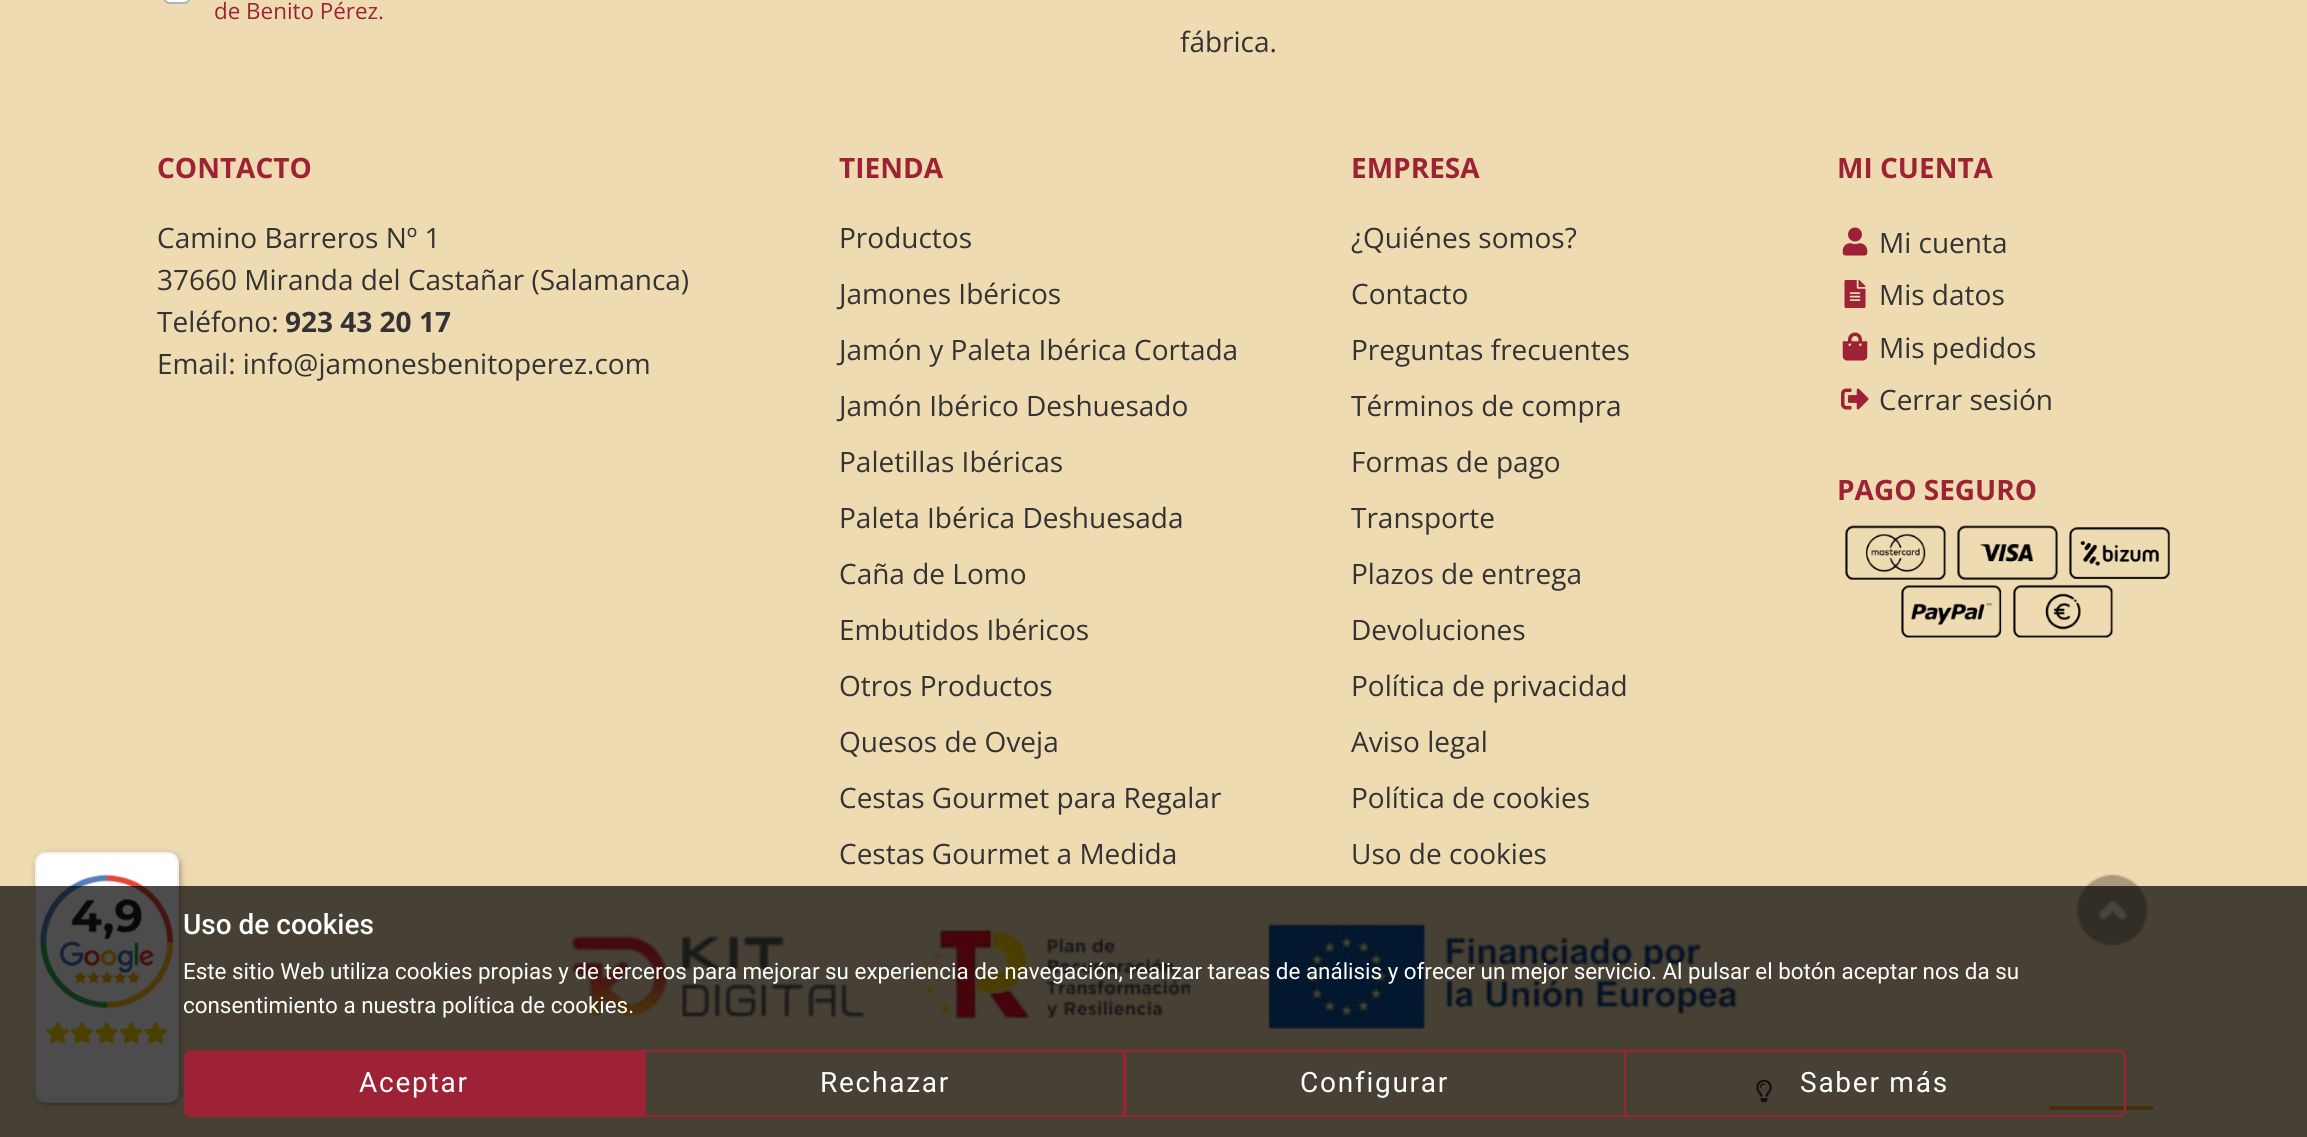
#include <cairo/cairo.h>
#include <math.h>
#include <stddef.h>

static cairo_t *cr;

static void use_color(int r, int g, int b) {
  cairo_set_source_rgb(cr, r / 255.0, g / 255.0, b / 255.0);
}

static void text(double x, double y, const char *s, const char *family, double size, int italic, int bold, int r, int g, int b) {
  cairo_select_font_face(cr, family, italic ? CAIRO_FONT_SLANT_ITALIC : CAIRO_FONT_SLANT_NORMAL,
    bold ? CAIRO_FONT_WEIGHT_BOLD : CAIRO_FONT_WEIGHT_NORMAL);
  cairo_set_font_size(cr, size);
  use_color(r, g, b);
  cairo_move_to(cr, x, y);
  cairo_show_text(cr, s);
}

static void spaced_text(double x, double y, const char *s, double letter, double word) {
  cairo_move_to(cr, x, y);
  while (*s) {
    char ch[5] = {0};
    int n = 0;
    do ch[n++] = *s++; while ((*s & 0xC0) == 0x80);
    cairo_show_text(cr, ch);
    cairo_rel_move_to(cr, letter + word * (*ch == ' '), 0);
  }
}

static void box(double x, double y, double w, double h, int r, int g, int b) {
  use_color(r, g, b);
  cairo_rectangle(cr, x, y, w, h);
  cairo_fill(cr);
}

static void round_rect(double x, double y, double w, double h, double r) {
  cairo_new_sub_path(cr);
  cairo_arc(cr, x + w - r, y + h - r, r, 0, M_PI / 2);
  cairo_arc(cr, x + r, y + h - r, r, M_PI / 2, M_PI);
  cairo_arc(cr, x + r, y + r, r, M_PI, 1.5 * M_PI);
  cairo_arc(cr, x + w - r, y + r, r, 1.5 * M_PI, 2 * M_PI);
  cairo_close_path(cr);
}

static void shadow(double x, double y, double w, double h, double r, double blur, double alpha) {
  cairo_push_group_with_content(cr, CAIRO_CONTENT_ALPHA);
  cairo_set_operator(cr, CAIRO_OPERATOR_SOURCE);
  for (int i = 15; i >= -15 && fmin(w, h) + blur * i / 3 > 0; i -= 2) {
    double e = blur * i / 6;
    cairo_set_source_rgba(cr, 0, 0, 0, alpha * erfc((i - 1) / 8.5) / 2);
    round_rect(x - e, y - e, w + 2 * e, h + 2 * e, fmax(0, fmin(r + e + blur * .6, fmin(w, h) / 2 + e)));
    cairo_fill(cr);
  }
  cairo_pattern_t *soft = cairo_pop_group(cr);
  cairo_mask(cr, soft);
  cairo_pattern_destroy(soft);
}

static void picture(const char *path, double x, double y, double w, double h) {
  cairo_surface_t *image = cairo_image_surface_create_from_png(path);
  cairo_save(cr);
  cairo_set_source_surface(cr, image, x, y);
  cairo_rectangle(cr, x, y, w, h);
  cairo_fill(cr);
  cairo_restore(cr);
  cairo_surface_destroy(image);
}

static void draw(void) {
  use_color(239, 219, 178);
  cairo_paint(cr);
  use_color(255, 255, 255);
  round_rect(164, -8, 26, 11, 6);
  cairo_fill_preserve(cr);
  use_color(173, 181, 189);
  cairo_stroke(cr);
  picture("img_01.png", 1842, 227, 26, 29);
  picture("img_02.png", 1844, 280, 22, 28);
  picture("img_03.png", 1842, 332, 26, 29);
  picture("img_04.png", 1841, 388, 28, 22);
  picture("img_05.png", 1845, 525, 101, 55);
  picture("img_06.png", 1957, 525, 101, 55);
  picture("img_07.png", 2069, 527, 101, 52);
  picture("img_08.png", 1901, 585, 101, 53);
  picture("img_09.png", 2013, 584, 101, 54);
  picture("img_10.png", 570, 923, 1168, 107);
  picture("img_11.png", 1756, 1079, 16, 24);
  box(2049, 1106, 104, 4, 234, 159, 34);
  use_color(0, 0, 0);
  shadow(40, 858, 137, 243, 7, 4.5, 0.75);
  use_color(255, 255, 255);
  round_rect(36, 853, 142, 249, 10);
  cairo_fill_preserve(cr);
  use_color(242, 242, 242);
  cairo_stroke(cr);
  picture("img_12.png", 39, 874, 135, 135);
  picture("img_13.png", 46, 1022, 23, 22);
  picture("img_14.png", 70, 1022, 24, 22);
  picture("img_13.png", 95, 1022, 23, 22);
  picture("img_14.png", 119, 1022, 24, 22);
  picture("img_13.png", 144, 1022, 23, 22);
  picture("img_15.png", 2076, 874, 72, 72);
  cairo_set_source_rgba(cr, 0, 0, 0, 0.7);
  cairo_rectangle(cr, 0, 886, 2307, 251);
  cairo_fill(cr);
  use_color(157, 34, 53);
  cairo_new_path(cr);
  cairo_move_to(cr, 191, 1050);
  cairo_line_to(cr, 646, 1050);
  cairo_line_to(cr, 646, 1117);
  cairo_line_to(cr, 191, 1117);
  cairo_curve_to(cr, 187, 1117, 184, 1114, 184, 1110);
  cairo_line_to(cr, 184, 1057);
  cairo_curve_to(cr, 184, 1053, 187, 1050, 191, 1050);
  cairo_close_path(cr);
  cairo_fill(cr);
  cairo_rectangle(cr, 645, 1051, 479, 65);
  cairo_stroke(cr);
  cairo_rectangle(cr, 1125, 1051, 500, 65);
  cairo_stroke(cr);
  cairo_new_path(cr);
  cairo_move_to(cr, 1625, 1051);
  cairo_line_to(cr, 2119, 1051);
  cairo_curve_to(cr, 2122.5, 1051, 2125, 1053.5, 2125, 1057);
  cairo_line_to(cr, 2125, 1110);
  cairo_curve_to(cr, 2125, 1113.5, 2122.5, 1116, 2119, 1116);
  cairo_line_to(cr, 1625, 1116);
  cairo_close_path(cr);
  cairo_stroke(cr);
  text(214, 19, "de Benito Pérez.", "Open Sans", 22.4, 0, 0, 157, 34, 53);
  text(1180, 52, "fábrica.", "Open Sans", 28, 0, 0, 51, 51, 51);
  text(157, 178, "CONTACTO", "Open Sans", 28, 0, 1, 157, 34, 53);
  text(157, 248, "Camino Barreros Nº 1", "Open Sans", 28, 0, 0, 51, 51, 51);
  text(157, 290, "37660 Miranda del Castañar (Salamanca)", "Open Sans", 28, 0, 0, 51, 51, 51);
  text(157, 332, "Teléfono:", "Open Sans", 28, 0, 0, 51, 51, 51);
  text(285, 332, "923 43 20 17", "Open Sans", 28, 0, 1, 51, 51, 51);
  text(157, 374, "Email: info@jamonesbenitoperez.com", "Open Sans", 28, 0, 0, 51, 51, 51);
  text(839, 178, "TIENDA", "Open Sans", 28, 0, 1, 157, 34, 53);
  text(839, 248, "Productos", "Open Sans", 28, 0, 0, 51, 51, 51);
  text(839, 304, "Jamones Ibéricos", "Open Sans", 28, 0, 0, 51, 51, 51);
  text(839, 360, "Jamón y Paleta Ibérica Cortada", "Open Sans", 28, 0, 0, 51, 51, 51);
  text(839, 416, "Jamón Ibérico Deshuesado", "Open Sans", 28, 0, 0, 51, 51, 51);
  text(839, 472, "Paletillas Ibéricas", "Open Sans", 28, 0, 0, 51, 51, 51);
  text(839, 528, "Paleta Ibérica Deshuesada", "Open Sans", 28, 0, 0, 51, 51, 51);
  text(839, 584, "Caña de Lomo", "Open Sans", 28, 0, 0, 51, 51, 51);
  text(839, 640, "Embutidos Ibéricos", "Open Sans", 28, 0, 0, 51, 51, 51);
  text(839, 696, "Otros Productos", "Open Sans", 28, 0, 0, 51, 51, 51);
  text(839, 752, "Quesos de Oveja", "Open Sans", 28, 0, 0, 51, 51, 51);
  text(839, 808, "Cestas Gourmet para Regalar", "Open Sans", 28, 0, 0, 51, 51, 51);
  text(839, 864, "Cestas Gourmet a Medida", "Open Sans", 28, 0, 0, 51, 51, 51);
  text(1351, 178, "EMPRESA", "Open Sans", 28, 0, 1, 157, 34, 53);
  text(1351, 248, "¿Quiénes somos?", "Open Sans", 28, 0, 0, 51, 51, 51);
  text(1351, 304, "Contacto", "Open Sans", 28, 0, 0, 51, 51, 51);
  text(1351, 360, "Preguntas frecuentes", "Open Sans", 28, 0, 0, 51, 51, 51);
  text(1351, 416, "Términos de compra", "Open Sans", 28, 0, 0, 51, 51, 51);
  text(1351, 472, "Formas de pago", "Open Sans", 28, 0, 0, 51, 51, 51);
  text(1351, 528, "Transporte", "Open Sans", 28, 0, 0, 51, 51, 51);
  text(1351, 584, "Plazos de entrega", "Open Sans", 28, 0, 0, 51, 51, 51);
  text(1351, 640, "Devoluciones", "Open Sans", 28, 0, 0, 51, 51, 51);
  text(1351, 696, "Política de privacidad", "Open Sans", 28, 0, 0, 51, 51, 51);
  text(1351, 752, "Aviso legal", "Open Sans", 28, 0, 0, 51, 51, 51);
  text(1351, 808, "Política de cookies", "Open Sans", 28, 0, 0, 51, 51, 51);
  text(1351, 864, "Uso de cookies", "Open Sans", 28, 0, 0, 51, 51, 51);
  text(1837, 178, "MI CUENTA", "Open Sans", 28, 0, 1, 157, 34, 53);
  text(1879, 253, "Mi cuenta", "Open Sans", 28, 0, 0, 51, 51, 51);
  text(1879, 305, "Mis datos", "Open Sans", 28, 0, 0, 51, 51, 51);
  text(1879, 358, "Mis pedidos", "Open Sans", 28, 0, 0, 51, 51, 51);
  text(1879, 410, "Cerrar sesión", "Open Sans", 28, 0, 0, 51, 51, 51);
  text(1837, 500, "PAGO SEGURO", "Open Sans", 28, 0, 1, 157, 34, 53);
  text(183, 934, "Uso de cookies", "Roboto Medium", 28, 0, 0, 255, 255, 255);
  text(183, 979, "Este sitio Web utiliza cookies propias y de terceros para mejorar su experiencia de navegación, realizar tareas de análisis y ofrecer un mejor servicio. Al pulsar el botón aceptar nos da su", "Roboto", 22.4, 0, 0, 255, 255, 255);
  text(183, 1013, "consentimiento a nuestra política de cookies.", "Roboto", 22.4, 0, 0, 255, 255, 255);
  cairo_set_font_size(cr, 28);
  spaced_text(359, 1092, "Aceptar", 1.75, 0);
  spaced_text(820, 1092, "Rechazar", 1.75, 0);
  spaced_text(1300, 1092, "Configurar", 1.75, 0);
  spaced_text(1800, 1092, "Saber más", 1.75, 0);
}

int main(void) {
  cairo_surface_t *surface = cairo_image_surface_create(CAIRO_FORMAT_RGB24, 2307, 1137);
  cr = cairo_create(surface);
  cairo_font_options_t *options = cairo_font_options_create();
  cairo_font_options_set_hint_metrics(options, CAIRO_HINT_METRICS_OFF);
  cairo_font_options_set_hint_style(options, CAIRO_HINT_STYLE_NONE);
  cairo_set_font_options(cr, options);
  cairo_set_miter_limit(cr, 4);
  draw();
  cairo_surface_write_to_png(surface, "out.png");
  cairo_font_options_destroy(options);
  cairo_destroy(cr);
  cairo_surface_destroy(surface);
  return 0;
}
